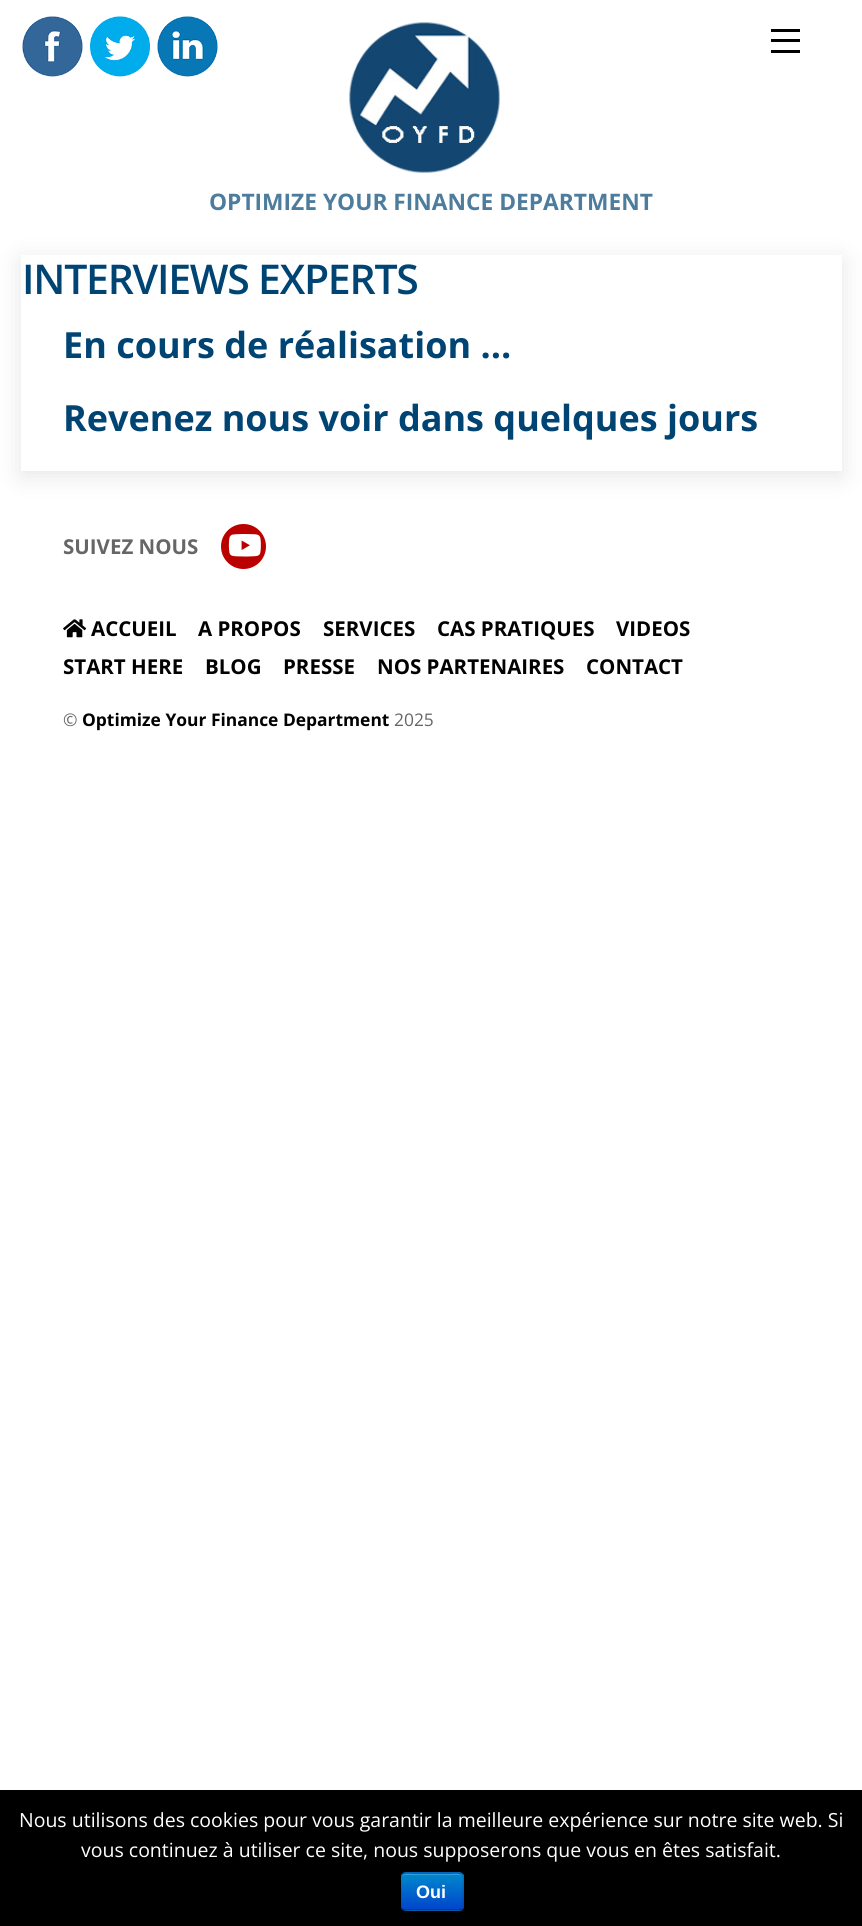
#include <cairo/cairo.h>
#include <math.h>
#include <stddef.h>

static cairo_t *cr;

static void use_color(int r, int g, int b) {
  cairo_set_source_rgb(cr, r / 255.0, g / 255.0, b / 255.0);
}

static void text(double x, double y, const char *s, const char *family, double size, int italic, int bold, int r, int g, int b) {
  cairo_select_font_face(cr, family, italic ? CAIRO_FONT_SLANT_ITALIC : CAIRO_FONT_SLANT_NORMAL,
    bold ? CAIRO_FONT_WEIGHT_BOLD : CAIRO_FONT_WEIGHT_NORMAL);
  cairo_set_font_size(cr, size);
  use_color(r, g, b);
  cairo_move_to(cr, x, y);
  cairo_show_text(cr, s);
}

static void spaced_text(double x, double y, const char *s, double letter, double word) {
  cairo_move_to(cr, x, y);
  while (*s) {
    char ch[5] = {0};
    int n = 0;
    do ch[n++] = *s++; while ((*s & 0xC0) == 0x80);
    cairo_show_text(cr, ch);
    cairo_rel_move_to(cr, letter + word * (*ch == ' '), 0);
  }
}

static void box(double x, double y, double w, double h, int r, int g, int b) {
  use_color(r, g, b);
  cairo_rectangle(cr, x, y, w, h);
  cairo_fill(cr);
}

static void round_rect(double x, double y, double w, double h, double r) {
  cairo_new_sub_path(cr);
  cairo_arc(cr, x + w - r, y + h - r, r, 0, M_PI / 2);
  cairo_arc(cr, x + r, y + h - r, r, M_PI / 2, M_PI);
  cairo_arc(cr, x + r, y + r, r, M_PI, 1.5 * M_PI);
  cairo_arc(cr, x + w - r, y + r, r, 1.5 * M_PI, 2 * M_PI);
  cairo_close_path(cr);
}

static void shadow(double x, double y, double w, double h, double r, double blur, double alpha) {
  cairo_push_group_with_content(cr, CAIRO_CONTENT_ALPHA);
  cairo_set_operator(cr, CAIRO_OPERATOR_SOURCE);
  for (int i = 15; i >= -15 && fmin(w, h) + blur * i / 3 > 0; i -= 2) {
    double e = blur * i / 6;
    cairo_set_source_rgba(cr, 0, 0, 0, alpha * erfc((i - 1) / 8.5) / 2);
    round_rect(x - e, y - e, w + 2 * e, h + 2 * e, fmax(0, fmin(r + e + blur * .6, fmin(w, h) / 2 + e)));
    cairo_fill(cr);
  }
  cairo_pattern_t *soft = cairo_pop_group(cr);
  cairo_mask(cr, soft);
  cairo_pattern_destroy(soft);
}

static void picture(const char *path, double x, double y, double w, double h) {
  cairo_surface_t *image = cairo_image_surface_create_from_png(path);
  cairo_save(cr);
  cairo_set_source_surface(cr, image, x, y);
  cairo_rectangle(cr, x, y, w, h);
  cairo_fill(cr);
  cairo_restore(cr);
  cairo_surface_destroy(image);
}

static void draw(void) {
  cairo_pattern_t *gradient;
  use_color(255, 255, 255);
  cairo_paint(cr);
  picture("img_01.png", 22, 16, 61, 61);
  picture("img_02.png", 90, 16, 60, 61);
  picture("img_03.png", 157, 16, 61, 61);
  box(771, 50, 29, 3, 0, 0, 0);
  box(771, 29, 29, 3, 0, 0, 0);
  box(771, 39, 29, 3, 0, 0, 0);
  picture("img_04.png", 349, 22, 151, 151);
  use_color(0, 0, 0);
  shadow(21, 260, 821, 216, 0, 12, 0.1);
  box(21, 255, 821, 216, 255, 255, 255);
  use_color(187, 0, 0);
  cairo_arc(cr, 243.5, 546.5, 22.5, 0, 2 * M_PI);
  cairo_fill(cr);
  picture("img_05.png", 228, 534, 33, 23);
  picture("img_06.png", 63, 619, 24, 19);
  box(0, 1790, 862, 136, 0, 0, 0);
  use_color(0, 109, 204);
  round_rect(401, 1872, 63, 39, 5);
  cairo_fill(cr);
  cairo_save(cr);
  round_rect(401, 1872, 63, 39, 5);
  cairo_clip(cr);
  gradient = cairo_pattern_create_linear(432, 1874, 432, 1910);
  cairo_pattern_add_color_stop_rgba(gradient, 0, 0, 0.533, 0.8, 1);
  cairo_pattern_add_color_stop_rgba(gradient, 1, 0, 0.267, 0.8, 1);
  cairo_set_source(cr, gradient);
  cairo_pattern_destroy(gradient);
  cairo_rectangle(cr, 401, 1874, 63, 36);
  cairo_fill(cr);
  cairo_restore(cr);
  use_color(51, 159, 214);
  cairo_new_path(cr);
  cairo_move_to(cr, 405, 1875);
  cairo_line_to(cr, 459, 1875);
  cairo_curve_to(cr, 461, 1875, 462, 1876, 462, 1878);
  cairo_curve_to(cr, 462, 1872, 454, 1874, 450, 1874);
  cairo_line_to(cr, 414, 1874);
  cairo_curve_to(cr, 410, 1874, 402, 1872, 402, 1878);
  cairo_curve_to(cr, 402, 1876, 403, 1875, 405, 1875);
  cairo_close_path(cr);
  cairo_fill(cr);
  cairo_new_path(cr);
  cairo_move_to(cr, 461.5, 1909);
  cairo_line_to(cr, 459.5, 1910);
  cairo_line_to(cr, 404.5, 1910);
  cairo_line_to(cr, 402.5, 1909);
  cairo_set_source_rgba(cr, 0, 0, 0, 0.25);
  cairo_set_line_width(cr, 1.5);
  cairo_stroke(cr);
  cairo_new_path(cr);
  cairo_move_to(cr, 402.5, 1909);
  cairo_curve_to(cr, 400.5, 1907.5, 401, 1903.5, 401, 1901.5);
  cairo_line_to(cr, 401, 1891.5);
  cairo_curve_to(cr, 401, 1873, 397, 1873, 414, 1873);
  cairo_line_to(cr, 450, 1873);
  cairo_curve_to(cr, 467, 1873, 463, 1873, 463, 1891.5);
  cairo_line_to(cr, 463, 1901.5);
  cairo_curve_to(cr, 463, 1903.5, 463.5, 1907.5, 461.5, 1909);
  cairo_set_source_rgba(cr, 0, 0, 0, 0.1);
  cairo_stroke(cr);
  text(209, 210, "OPTIMIZE YOUR FINANCE DEPARTMENT", "Open Sans", 22.75, 0, 1, 77, 124, 157);
  cairo_select_font_face(cr, "Open Sans SemiBold", CAIRO_FONT_SLANT_NORMAL, CAIRO_FONT_WEIGHT_NORMAL);
  cairo_set_font_size(cr, 41);
  use_color(0, 68, 115);
  spaced_text(22, 294, "INTERVIEWS EXPERTS", -1.25, 0);
  text(63, 358, "En cours de réalisation …", "Open Sans", 36, 0, 1, 0, 68, 115);
  text(63, 431, "Revenez nous voir dans quelques jours", "Open Sans", 36, 0, 1, 0, 68, 115);
  text(63, 554, "SUIVEZ NOUS", "Open Sans", 20.5, 0, 1, 102, 102, 102);
  text(91, 636, "ACCUEIL", "Open Sans", 20.5, 0, 1, 0, 0, 0);
  text(198, 636, "A PROPOS", "Open Sans", 20.5, 0, 1, 0, 0, 0);
  text(323, 636, "SERVICES", "Open Sans", 20.5, 0, 1, 0, 0, 0);
  text(437, 636, "CAS PRATIQUES", "Open Sans", 20.5, 0, 1, 0, 0, 0);
  text(616, 636, "VIDEOS", "Open Sans", 20.5, 0, 1, 0, 0, 0);
  text(63, 674, "START HERE", "Open Sans", 20.5, 0, 1, 0, 0, 0);
  text(205, 674, "BLOG", "Open Sans", 20.5, 0, 1, 0, 0, 0);
  text(283, 674, "PRESSE", "Open Sans", 20.5, 0, 1, 0, 0, 0);
  text(377, 674, "NOS PARTENAIRES", "Open Sans", 20.5, 0, 1, 0, 0, 0);
  text(586, 674, "CONTACT", "Open Sans", 20.5, 0, 1, 0, 0, 0);
  text(63, 726, "©", "Open Sans", 17.4, 0, 0, 102, 102, 102);
  text(82, 726, "Optimize Your Finance Department", "Open Sans", 17.4, 0, 1, 0, 0, 0);
  text(394, 726, "2025", "Open Sans", 17.4, 0, 0, 102, 102, 102);
  text(19, 1827, "Nous utilisons des cookies pour vous garantir la meilleure expérience sur notre site web. Si", "Open Sans", 19.5, 0, 0, 255, 255, 255);
  text(81, 1857, "vous continuez à utiliser ce site, nous supposerons que vous en êtes satisfait.", "Open Sans", 19.5, 0, 0, 255, 255, 255);
  text(416, 1898, "Oui", "Liberation Sans", 18, 0, 1, 255, 255, 255);
}

int main(void) {
  cairo_surface_t *surface = cairo_image_surface_create(CAIRO_FORMAT_RGB24, 862, 1926);
  cr = cairo_create(surface);
  cairo_font_options_t *options = cairo_font_options_create();
  cairo_font_options_set_hint_metrics(options, CAIRO_HINT_METRICS_OFF);
  cairo_font_options_set_hint_style(options, CAIRO_HINT_STYLE_NONE);
  cairo_set_font_options(cr, options);
  cairo_set_miter_limit(cr, 4);
  draw();
  cairo_surface_write_to_png(surface, "out.png");
  cairo_font_options_destroy(options);
  cairo_destroy(cr);
  cairo_surface_destroy(surface);
  return 0;
}
